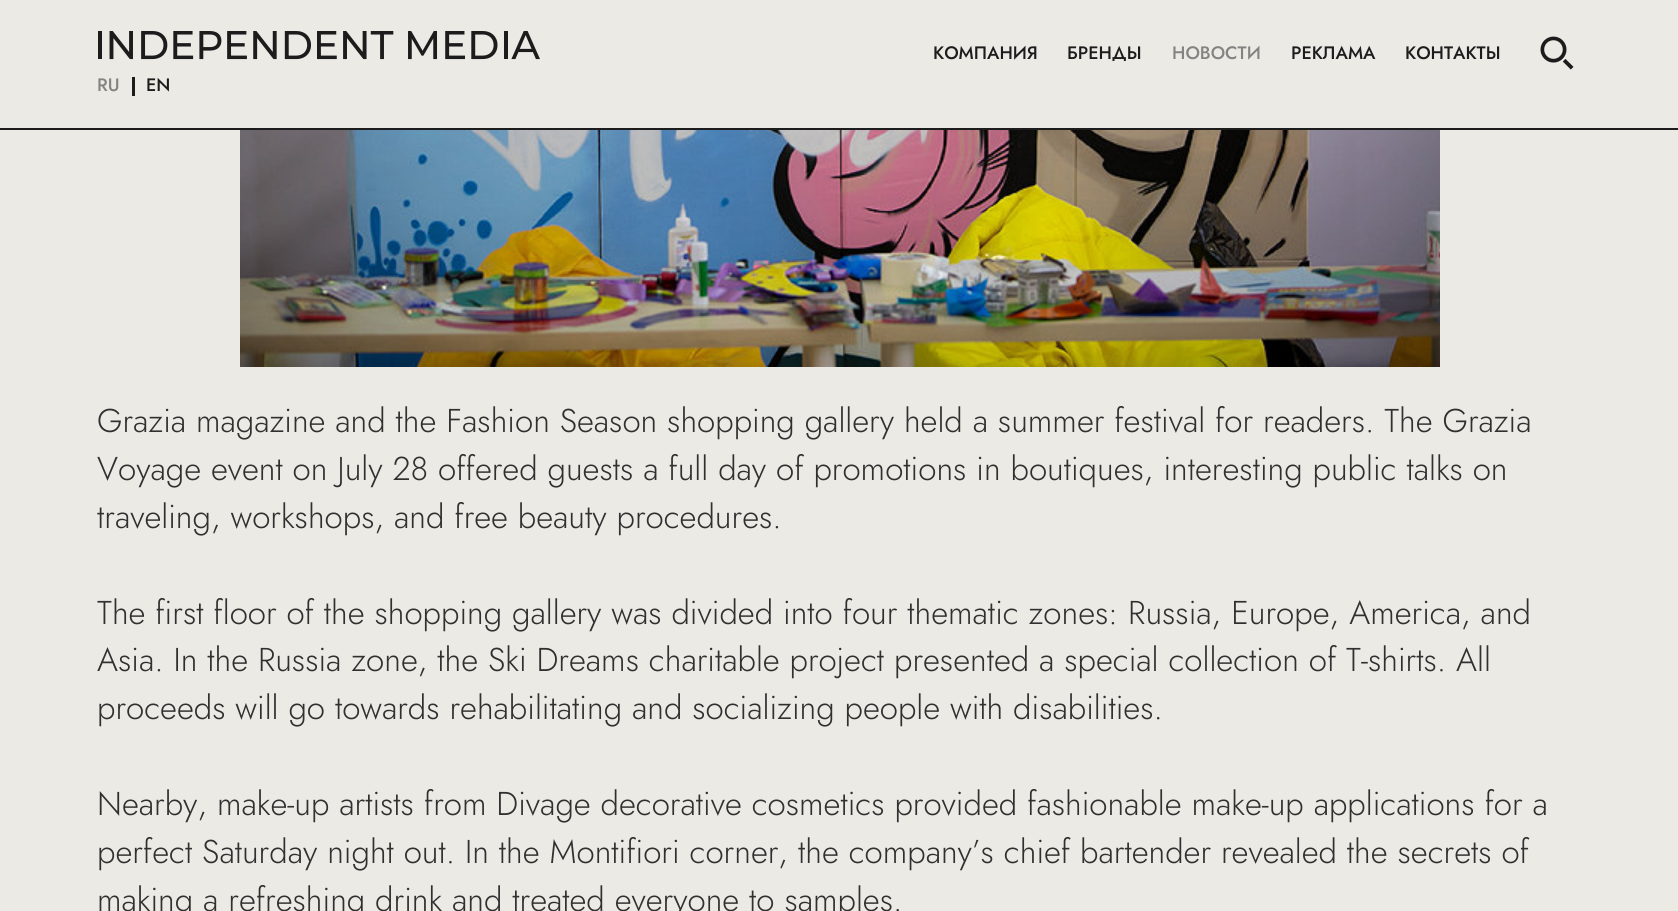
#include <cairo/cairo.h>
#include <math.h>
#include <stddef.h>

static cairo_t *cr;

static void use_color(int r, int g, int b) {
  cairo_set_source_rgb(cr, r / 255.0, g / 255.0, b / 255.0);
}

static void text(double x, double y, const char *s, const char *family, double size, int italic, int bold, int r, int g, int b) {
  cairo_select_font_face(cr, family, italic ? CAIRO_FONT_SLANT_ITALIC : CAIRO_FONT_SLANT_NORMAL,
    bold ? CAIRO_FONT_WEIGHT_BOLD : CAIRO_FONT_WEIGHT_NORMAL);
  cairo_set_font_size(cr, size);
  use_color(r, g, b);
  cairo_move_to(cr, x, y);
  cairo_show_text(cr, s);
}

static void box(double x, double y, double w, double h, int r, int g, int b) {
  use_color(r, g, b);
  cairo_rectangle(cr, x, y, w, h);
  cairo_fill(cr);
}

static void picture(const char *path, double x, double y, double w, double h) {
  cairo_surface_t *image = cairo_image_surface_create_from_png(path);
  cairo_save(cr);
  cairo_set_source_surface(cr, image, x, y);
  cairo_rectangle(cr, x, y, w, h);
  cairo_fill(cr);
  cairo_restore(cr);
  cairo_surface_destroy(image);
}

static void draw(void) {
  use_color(236, 234, 229);
  cairo_paint(cr);
  box(0, 128, 1678, 2, 28, 28, 28);
  picture("img_01.png", 98, 31, 442, 29);
  picture("img_02.png", 1540, 36, 34, 34);
  box(132, 77, 3, 19, 28, 28, 28);
  picture("img_03.png", 240, 130, 1200, 237);
  text(933, 59, "КОМПАНИЯ", "Jost Medium", 18, 0, 0, 28, 28, 28);
  text(1067, 59, "БРЕНДЫ", "Jost Medium", 18, 0, 0, 28, 28, 28);
  text(1172, 59, "НОВОСТИ", "Jost Medium", 18, 0, 0, 132, 131, 129);
  text(1291, 59, "РЕКЛАМА", "Jost Medium", 18, 0, 0, 28, 28, 28);
  text(1405, 59, "КОНТАКТЫ", "Jost Medium", 18, 0, 0, 28, 28, 28);
  text(97, 91, "RU", "Jost Medium", 18, 0, 0, 132, 131, 129);
  text(146, 91, "EN", "Jost Medium", 18, 0, 0, 28, 28, 28);
  text(97, 432, "Grazia magazine and the Fashion Season shopping gallery held a summer festival for readers. The Grazia", "Jost Light", 33, 0, 0, 48, 48, 48);
  text(97, 480, "Voyage event on July 28 offered guests a full day of promotions in boutiques, interesting public talks on", "Jost Light", 33, 0, 0, 48, 48, 48);
  text(97, 528, "traveling, workshops, and free beauty procedures.", "Jost Light", 33, 0, 0, 48, 48, 48);
  text(97, 624, "The first floor of the shopping gallery was divided into four thematic zones: Russia, Europe, America, and", "Jost Light", 33, 0, 0, 48, 48, 48);
  text(97, 671, "Asia. In the Russia zone, the Ski Dreams charitable project presented a special collection of T-shirts. All", "Jost Light", 33, 0, 0, 48, 48, 48);
  text(97, 719, "proceeds will go towards rehabilitating and socializing people with disabilities.", "Jost Light", 33, 0, 0, 48, 48, 48);
  text(97, 815, "Nearby, make-up artists from Divage decorative cosmetics provided fashionable make-up applications for a", "Jost Light", 33, 0, 0, 48, 48, 48);
  text(97, 863, "perfect Saturday night out. In the Montifiori corner, the company’s chief bartender revealed the secrets of", "Jost Light", 33, 0, 0, 48, 48, 48);
  text(97, 911, "making a refreshing drink and treated everyone to samples.", "Jost Light", 33, 0, 0, 48, 48, 48);
}

int main(void) {
  cairo_surface_t *surface = cairo_image_surface_create(CAIRO_FORMAT_RGB24, 1678, 911);
  cr = cairo_create(surface);
  cairo_font_options_t *options = cairo_font_options_create();
  cairo_font_options_set_hint_metrics(options, CAIRO_HINT_METRICS_OFF);
  cairo_font_options_set_hint_style(options, CAIRO_HINT_STYLE_NONE);
  cairo_set_font_options(cr, options);
  cairo_set_miter_limit(cr, 4);
  draw();
  cairo_surface_write_to_png(surface, "out.png");
  cairo_font_options_destroy(options);
  cairo_destroy(cr);
  cairo_surface_destroy(surface);
  return 0;
}
